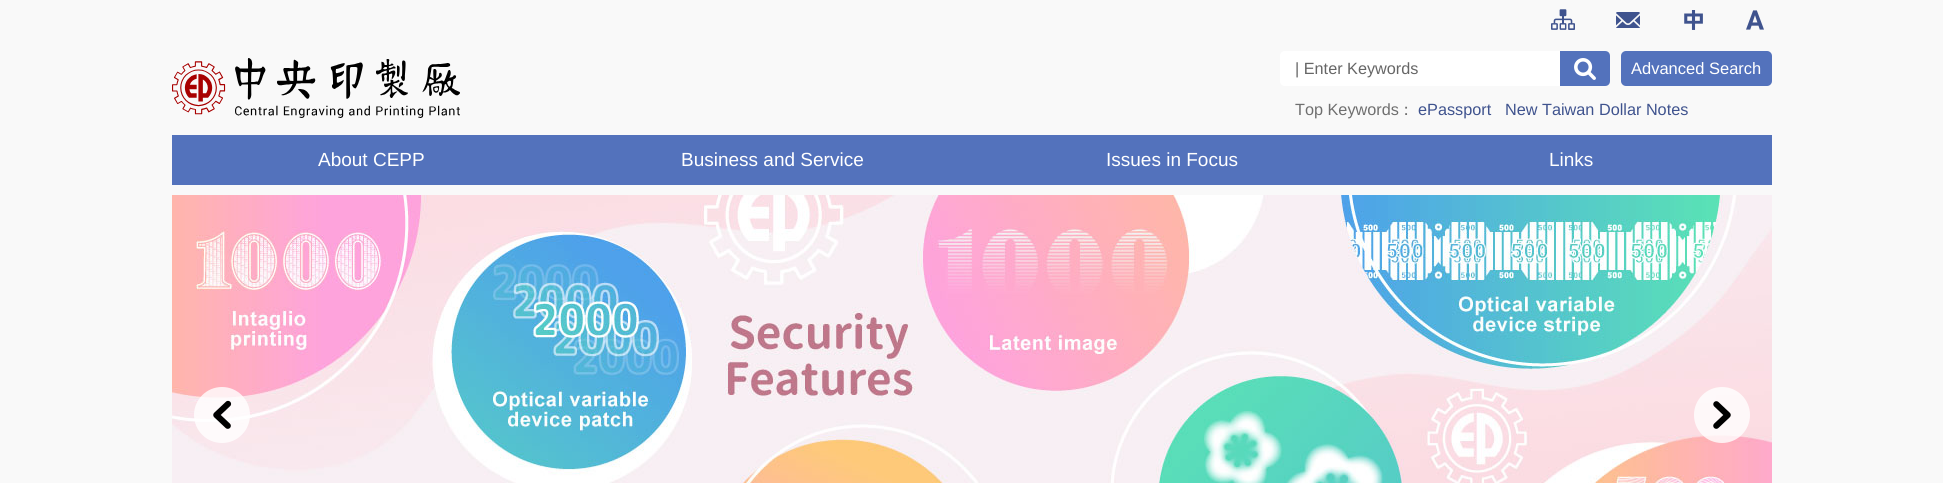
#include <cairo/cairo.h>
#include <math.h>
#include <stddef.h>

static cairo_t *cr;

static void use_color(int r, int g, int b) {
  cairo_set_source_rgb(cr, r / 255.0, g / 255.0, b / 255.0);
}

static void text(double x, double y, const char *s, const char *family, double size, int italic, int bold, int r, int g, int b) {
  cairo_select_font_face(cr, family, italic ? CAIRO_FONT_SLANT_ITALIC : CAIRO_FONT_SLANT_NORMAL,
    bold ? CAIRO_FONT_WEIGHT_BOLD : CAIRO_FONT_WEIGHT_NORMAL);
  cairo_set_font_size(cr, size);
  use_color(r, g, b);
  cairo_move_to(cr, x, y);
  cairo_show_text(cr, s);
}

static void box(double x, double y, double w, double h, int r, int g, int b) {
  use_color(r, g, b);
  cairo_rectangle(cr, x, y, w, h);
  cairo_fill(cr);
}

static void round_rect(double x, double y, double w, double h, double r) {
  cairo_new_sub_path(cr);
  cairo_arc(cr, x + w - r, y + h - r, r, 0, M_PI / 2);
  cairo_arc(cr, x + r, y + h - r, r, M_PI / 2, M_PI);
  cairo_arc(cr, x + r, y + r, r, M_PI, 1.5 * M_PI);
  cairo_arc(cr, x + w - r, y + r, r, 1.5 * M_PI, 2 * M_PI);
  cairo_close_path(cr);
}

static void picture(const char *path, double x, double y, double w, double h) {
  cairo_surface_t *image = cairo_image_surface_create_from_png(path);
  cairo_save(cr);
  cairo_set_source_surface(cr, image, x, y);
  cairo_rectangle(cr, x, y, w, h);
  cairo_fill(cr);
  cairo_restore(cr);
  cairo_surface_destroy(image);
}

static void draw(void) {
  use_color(249, 249, 249);
  cairo_paint(cr);
  picture("img_01.png", 172, 58, 288, 60);
  picture("img_02.png", 1551, 9, 24, 21);
  picture("img_03.png", 1616, 12, 24, 16);
  picture("img_04.png", 1684, 10, 19, 20);
  picture("img_05.png", 1746, 10, 18, 20);
  use_color(255, 255, 255);
  cairo_new_path(cr);
  cairo_move_to(cr, 1285, 51);
  cairo_line_to(cr, 1560, 51);
  cairo_line_to(cr, 1560, 86);
  cairo_line_to(cr, 1285, 86);
  cairo_curve_to(cr, 1282, 86, 1280, 84, 1280, 81);
  cairo_line_to(cr, 1280, 56);
  cairo_curve_to(cr, 1280, 53, 1282, 51, 1285, 51);
  cairo_close_path(cr);
  cairo_fill(cr);
  use_color(83, 114, 188);
  cairo_new_path(cr);
  cairo_move_to(cr, 1560, 51);
  cairo_line_to(cr, 1605, 51);
  cairo_curve_to(cr, 1608, 51, 1610, 53, 1610, 56);
  cairo_line_to(cr, 1610, 81);
  cairo_curve_to(cr, 1610, 84, 1608, 86, 1605, 86);
  cairo_line_to(cr, 1560, 86);
  cairo_close_path(cr);
  cairo_fill(cr);
  picture("img_06.png", 1574, 58, 22, 22);
  round_rect(1621, 51, 151, 35, 5);
  cairo_fill(cr);
  box(172, 135, 1600, 50, 83, 114, 188);
  picture("img_07.png", 172, 195, 1600, 288);
  picture("img_08.png", 194, 387, 56, 56);
  picture("img_09.png", 1694, 387, 56, 56);
  text(1295, 74, "| Enter Keywords", "Liberation Sans", 16.25, 0, 0, 102, 102, 102);
  text(1631, 74, "Advanced Search", "Liberation Sans", 16.5, 0, 0, 255, 255, 255);
  text(1295, 115, "Top Keywords", "Liberation Sans", 16.25, 0, 0, 111, 111, 111);
  text(1398, 115, "：", "WenQuanYi Zen Hei Medium", 16.25, 0, 0, 111, 111, 111);
  text(1418, 115, "ePassport", "Liberation Sans", 16.25, 0, 0, 63, 83, 142);
  text(1505, 115, "New Taiwan Dollar Notes", "Liberation Sans", 16.25, 0, 0, 63, 83, 142);
  text(318, 166, "About CEPP", "Liberation Sans", 19, 0, 0, 255, 255, 255);
  text(681, 166, "Business and Service", "Liberation Sans", 19, 0, 0, 255, 255, 255);
  text(1106, 166, "Issues in Focus", "Liberation Sans", 19, 0, 0, 255, 255, 255);
  text(1549, 166, "Links", "Liberation Sans", 19, 0, 0, 255, 255, 255);
}

int main(void) {
  cairo_surface_t *surface = cairo_image_surface_create(CAIRO_FORMAT_RGB24, 1943, 483);
  cr = cairo_create(surface);
  cairo_font_options_t *options = cairo_font_options_create();
  cairo_font_options_set_hint_metrics(options, CAIRO_HINT_METRICS_OFF);
  cairo_font_options_set_hint_style(options, CAIRO_HINT_STYLE_NONE);
  cairo_set_font_options(cr, options);
  cairo_set_miter_limit(cr, 4);
  draw();
  cairo_surface_write_to_png(surface, "out.png");
  cairo_font_options_destroy(options);
  cairo_destroy(cr);
  cairo_surface_destroy(surface);
  return 0;
}
